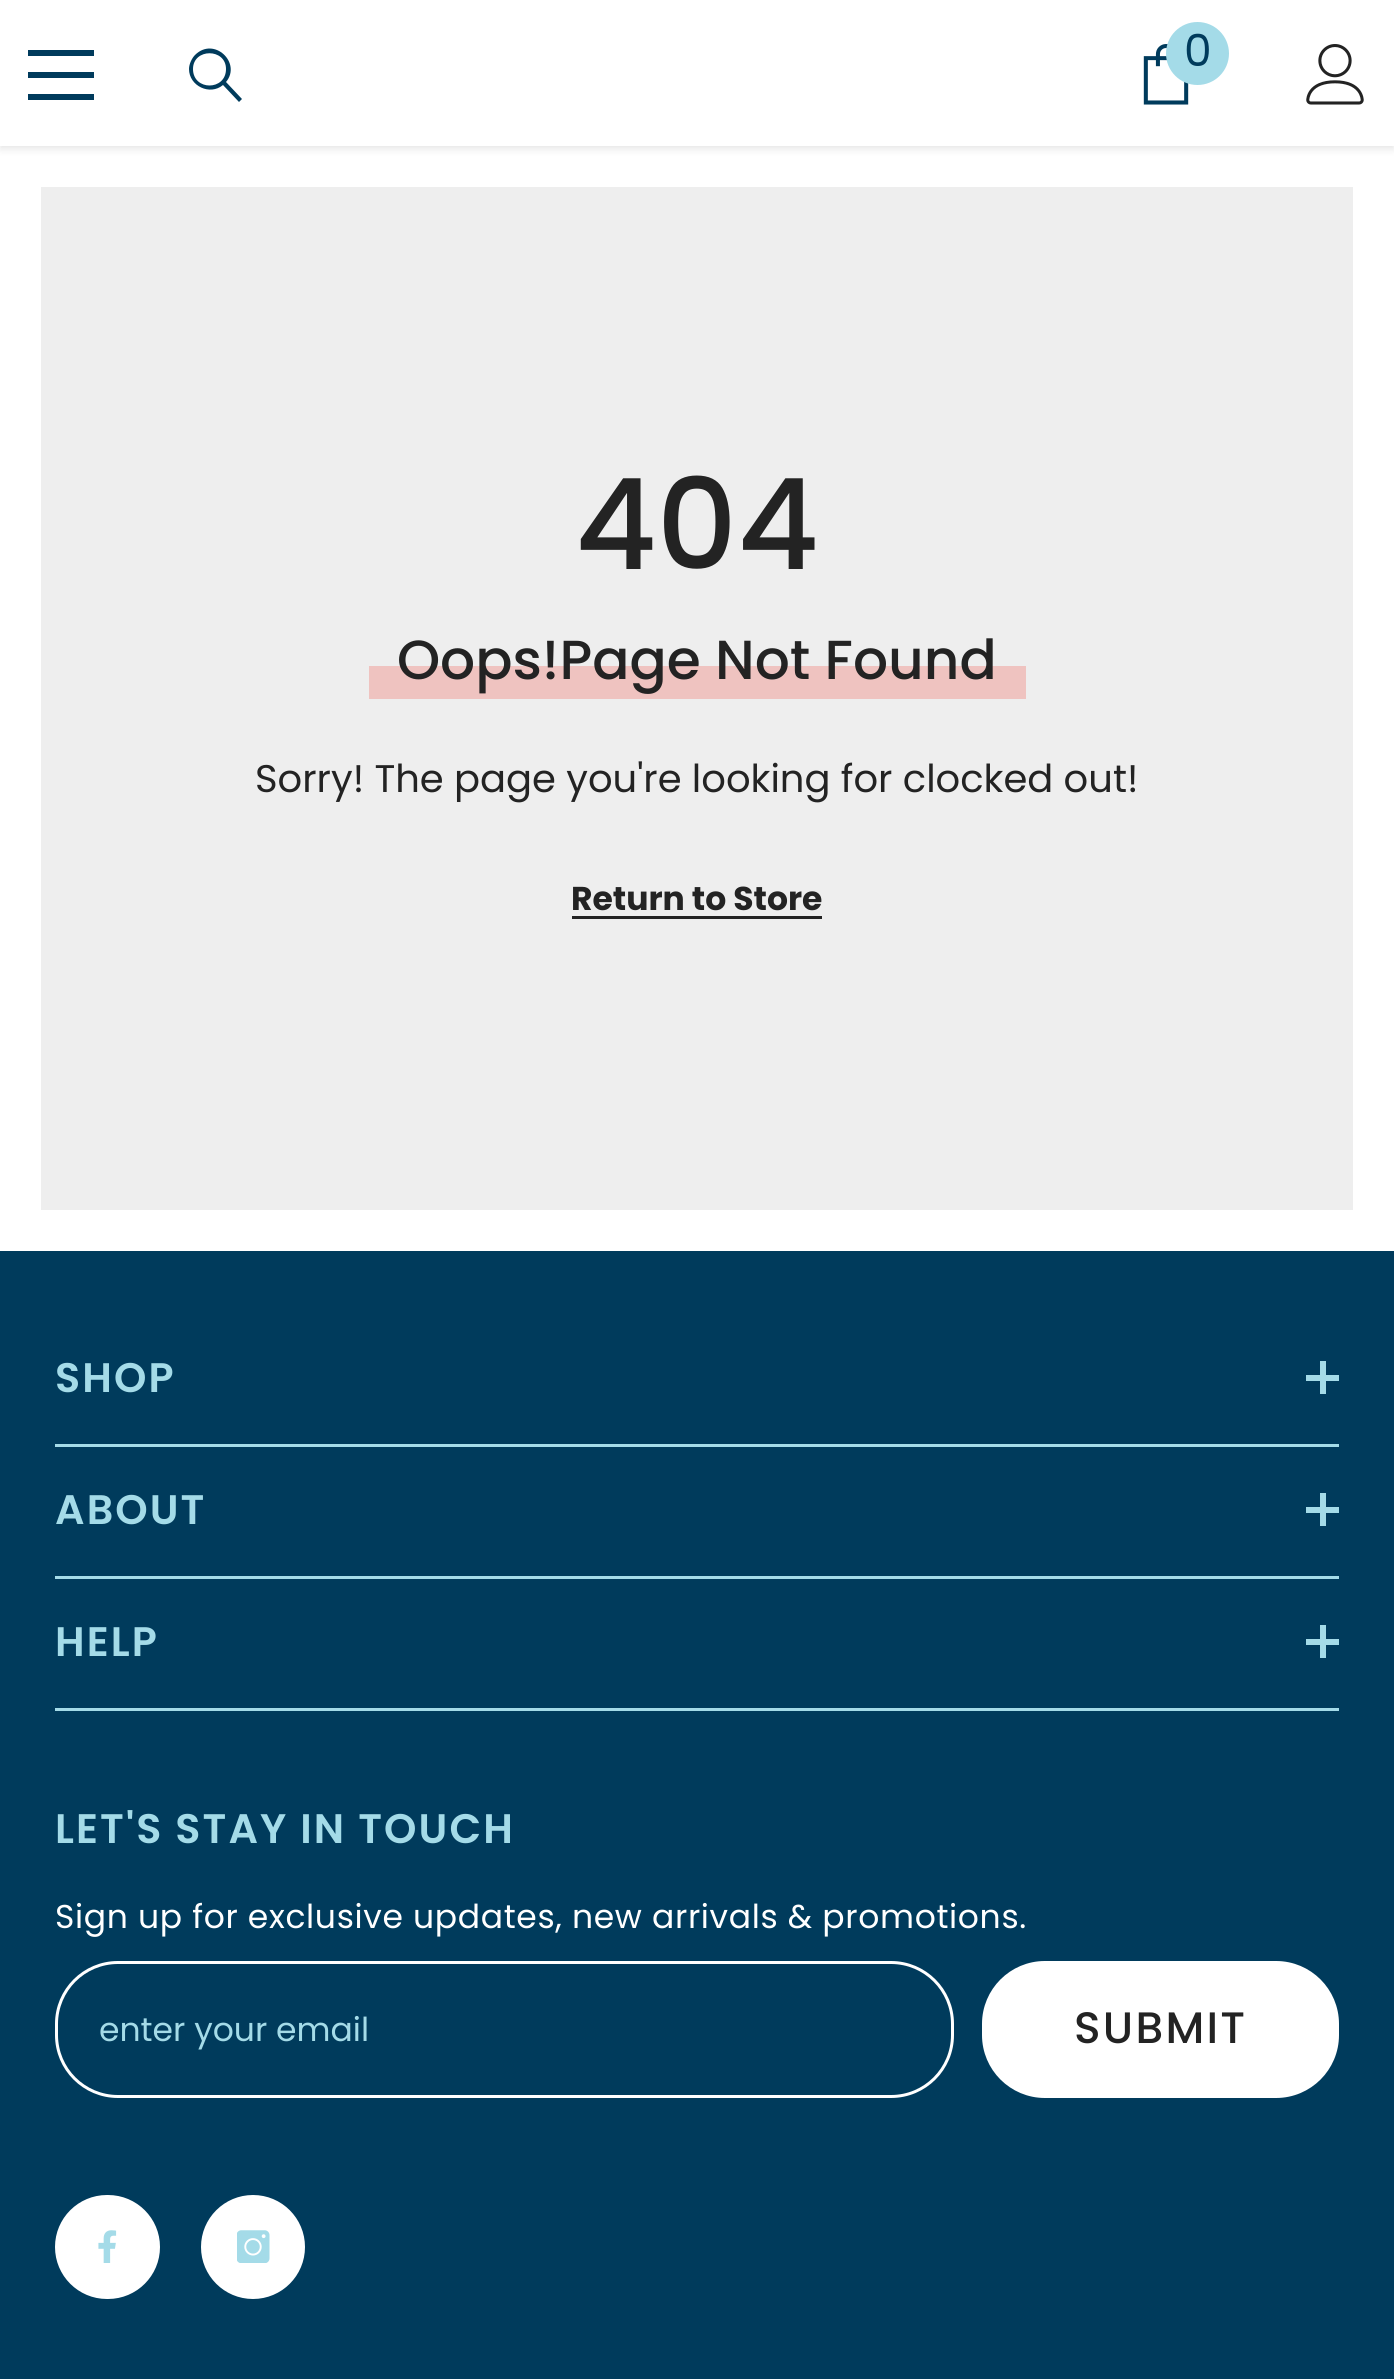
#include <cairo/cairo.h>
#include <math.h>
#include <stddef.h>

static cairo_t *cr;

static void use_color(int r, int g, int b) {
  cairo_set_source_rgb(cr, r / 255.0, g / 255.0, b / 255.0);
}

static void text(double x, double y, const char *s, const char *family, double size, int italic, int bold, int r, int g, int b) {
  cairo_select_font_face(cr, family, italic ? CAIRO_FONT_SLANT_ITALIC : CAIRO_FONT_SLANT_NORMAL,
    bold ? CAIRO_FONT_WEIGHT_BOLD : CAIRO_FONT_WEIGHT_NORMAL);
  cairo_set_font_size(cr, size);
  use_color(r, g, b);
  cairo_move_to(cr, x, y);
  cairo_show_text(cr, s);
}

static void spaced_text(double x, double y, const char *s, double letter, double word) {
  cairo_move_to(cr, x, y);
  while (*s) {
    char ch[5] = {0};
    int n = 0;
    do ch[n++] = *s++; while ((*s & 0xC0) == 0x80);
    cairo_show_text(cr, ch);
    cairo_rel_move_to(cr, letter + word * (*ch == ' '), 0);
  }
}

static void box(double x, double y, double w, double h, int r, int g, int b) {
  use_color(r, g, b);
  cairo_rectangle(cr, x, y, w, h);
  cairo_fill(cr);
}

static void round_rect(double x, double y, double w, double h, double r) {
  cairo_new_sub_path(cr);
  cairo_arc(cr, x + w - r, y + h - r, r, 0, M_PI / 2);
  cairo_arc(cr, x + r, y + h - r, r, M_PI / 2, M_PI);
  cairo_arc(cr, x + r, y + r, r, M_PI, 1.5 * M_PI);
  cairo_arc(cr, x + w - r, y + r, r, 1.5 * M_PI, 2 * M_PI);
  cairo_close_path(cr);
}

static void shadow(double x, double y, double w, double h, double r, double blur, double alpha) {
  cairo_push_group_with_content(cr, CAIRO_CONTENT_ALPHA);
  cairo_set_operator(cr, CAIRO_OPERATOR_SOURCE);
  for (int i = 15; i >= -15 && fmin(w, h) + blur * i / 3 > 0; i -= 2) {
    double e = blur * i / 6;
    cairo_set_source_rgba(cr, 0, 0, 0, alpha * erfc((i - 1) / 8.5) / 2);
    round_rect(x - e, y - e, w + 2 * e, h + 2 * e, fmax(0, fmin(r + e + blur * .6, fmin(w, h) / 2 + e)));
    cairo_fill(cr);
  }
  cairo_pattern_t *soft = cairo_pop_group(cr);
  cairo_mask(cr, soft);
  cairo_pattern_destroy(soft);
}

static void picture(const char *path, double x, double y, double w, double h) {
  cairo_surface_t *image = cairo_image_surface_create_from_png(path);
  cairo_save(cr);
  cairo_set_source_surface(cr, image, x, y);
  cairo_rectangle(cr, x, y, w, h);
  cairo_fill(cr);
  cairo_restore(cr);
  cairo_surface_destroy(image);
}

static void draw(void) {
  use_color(255, 255, 255);
  cairo_paint(cr);
  use_color(0, 0, 0);
  shadow(0, 3, 1394, 146, 0, 4, 0.1);
  box(0, 0, 1394, 146, 255, 255, 255);
  box(28, 72, 66, 6, 0, 59, 92);
  box(28, 50, 66, 6, 0, 59, 92);
  box(28, 94, 66, 6, 0, 59, 92);
  cairo_new_path(cr);
  cairo_move_to(cr, 189, 69);
  cairo_curve_to(cr, 189, 86, 210, 96, 223, 85);
  cairo_line_to(cr, 239, 102);
  cairo_line_to(cr, 242, 99);
  cairo_line_to(cr, 226, 82);
  cairo_curve_to(cr, 242, 63, 214, 36, 195, 55);
  cairo_curve_to(cr, 192, 58, 189, 64, 189, 69);
  cairo_close_path(cr);
  cairo_move_to(cr, 193, 69);
  cairo_curve_to(cr, 193, 48, 226, 48, 226, 69);
  cairo_curve_to(cr, 226, 91, 193, 91, 193, 69);
  cairo_close_path(cr);
  cairo_fill(cr);
  picture("img_01.png", 1143, 44, 46, 61);
  use_color(164, 219, 232);
  cairo_arc(cr, 1197.5, 53.5, 31.5, 0, 2 * M_PI);
  cairo_fill(cr);
  picture("img_02.png", 1306, 44, 58, 61);
  box(41, 187, 1312, 1023, 238, 238, 238);
  box(369, 666, 657, 33, 239, 195, 192);
  box(572, 916, 250, 3, 35, 35, 35);
  box(0, 1251, 1394, 1128, 0, 59, 92);
  box(55, 1444, 1284, 3, 164, 219, 232);
  box(1320, 1361, 6, 33, 164, 219, 232);
  box(1306, 1375, 33, 6, 164, 219, 232);
  box(55, 1576, 1284, 3, 164, 219, 232);
  box(1320, 1493, 6, 33, 164, 219, 232);
  box(1306, 1507, 33, 6, 164, 219, 232);
  box(55, 1708, 1284, 3, 164, 219, 232);
  box(1320, 1625, 6, 33, 164, 219, 232);
  box(1306, 1639, 33, 6, 164, 219, 232);
  round_rect(56.5, 1962.5, 896, 134, 61.5);
  use_color(255, 255, 255);
  cairo_set_line_width(cr, 3);
  cairo_stroke(cr);
  round_rect(983.5, 1962.5, 354, 134, 61.5);
  cairo_fill_preserve(cr);
  cairo_stroke(cr);
  round_rect(56.5, 2196.5, 102, 101, 50.5);
  cairo_fill_preserve(cr);
  cairo_stroke(cr);
  picture("img_03.png", 98, 2230, 19, 33);
  cairo_arc(cr, 253, 2247, 50.5, 0, 2 * M_PI);
  cairo_fill_preserve(cr);
  cairo_stroke(cr);
  picture("img_04.png", 237, 2230, 33, 33);
  text(1184, 66, "0", "Poppins", 44, 0, 0, 0, 59, 92);
  text(575, 569, "404", "Poppins Medium", 126, 0, 0, 35, 35, 35);
  text(397, 679, "Oops!Page Not Found", "Poppins Medium", 55, 0, 0, 35, 35, 35);
  text(255, 792, "Sorry! The page you're looking for clocked out!", "Poppins", 38.5, 0, 0, 35, 35, 35);
  text(571, 910, "Return to Store", "Poppins", 33, 0, 1, 35, 35, 35);
  cairo_select_font_face(cr, "Poppins SemiBold", CAIRO_FONT_SLANT_NORMAL, CAIRO_FONT_WEIGHT_NORMAL);
  cairo_set_font_size(cr, 41.25);
  use_color(164, 219, 232);
  spaced_text(55, 1392, "SHOP", 2.1, 0);
  spaced_text(55, 1524, "ABOUT", 2.1, 0);
  spaced_text(55, 1656, "HELP", 2.1, 0);
  spaced_text(55, 1843, "LET'S STAY IN TOUCH", 2.1, 0);
  cairo_select_font_face(cr, "Poppins", CAIRO_FONT_SLANT_NORMAL, CAIRO_FONT_WEIGHT_NORMAL);
  cairo_set_font_size(cr, 33);
  use_color(255, 255, 255);
  spaced_text(55, 1928, "Sign up for exclusive updates, new arrivals & promotions.", 0.65, 0);
  text(99, 2041, "enter your email", "Poppins", 33, 0, 0, 164, 219, 232);
  cairo_select_font_face(cr, "Poppins Medium", CAIRO_FONT_SLANT_NORMAL, CAIRO_FONT_WEIGHT_NORMAL);
  cairo_set_font_size(cr, 44);
  use_color(35, 35, 35);
  spaced_text(1074, 2043, "SUBMIT", 2.25, 0);
}

int main(void) {
  cairo_surface_t *surface = cairo_image_surface_create(CAIRO_FORMAT_RGB24, 1394, 2379);
  cr = cairo_create(surface);
  cairo_font_options_t *options = cairo_font_options_create();
  cairo_font_options_set_hint_metrics(options, CAIRO_HINT_METRICS_OFF);
  cairo_font_options_set_hint_style(options, CAIRO_HINT_STYLE_NONE);
  cairo_set_font_options(cr, options);
  cairo_set_miter_limit(cr, 4);
  draw();
  cairo_surface_write_to_png(surface, "out.png");
  cairo_font_options_destroy(options);
  cairo_destroy(cr);
  cairo_surface_destroy(surface);
  return 0;
}
